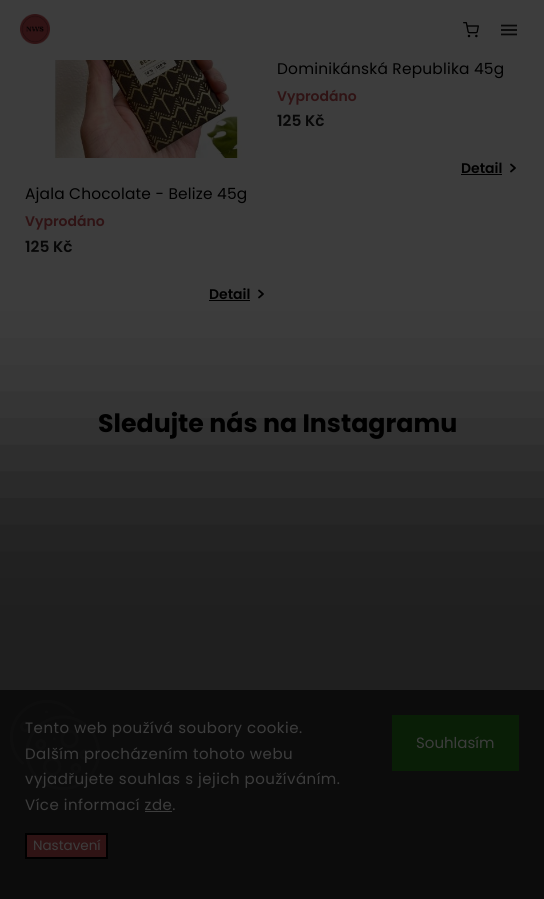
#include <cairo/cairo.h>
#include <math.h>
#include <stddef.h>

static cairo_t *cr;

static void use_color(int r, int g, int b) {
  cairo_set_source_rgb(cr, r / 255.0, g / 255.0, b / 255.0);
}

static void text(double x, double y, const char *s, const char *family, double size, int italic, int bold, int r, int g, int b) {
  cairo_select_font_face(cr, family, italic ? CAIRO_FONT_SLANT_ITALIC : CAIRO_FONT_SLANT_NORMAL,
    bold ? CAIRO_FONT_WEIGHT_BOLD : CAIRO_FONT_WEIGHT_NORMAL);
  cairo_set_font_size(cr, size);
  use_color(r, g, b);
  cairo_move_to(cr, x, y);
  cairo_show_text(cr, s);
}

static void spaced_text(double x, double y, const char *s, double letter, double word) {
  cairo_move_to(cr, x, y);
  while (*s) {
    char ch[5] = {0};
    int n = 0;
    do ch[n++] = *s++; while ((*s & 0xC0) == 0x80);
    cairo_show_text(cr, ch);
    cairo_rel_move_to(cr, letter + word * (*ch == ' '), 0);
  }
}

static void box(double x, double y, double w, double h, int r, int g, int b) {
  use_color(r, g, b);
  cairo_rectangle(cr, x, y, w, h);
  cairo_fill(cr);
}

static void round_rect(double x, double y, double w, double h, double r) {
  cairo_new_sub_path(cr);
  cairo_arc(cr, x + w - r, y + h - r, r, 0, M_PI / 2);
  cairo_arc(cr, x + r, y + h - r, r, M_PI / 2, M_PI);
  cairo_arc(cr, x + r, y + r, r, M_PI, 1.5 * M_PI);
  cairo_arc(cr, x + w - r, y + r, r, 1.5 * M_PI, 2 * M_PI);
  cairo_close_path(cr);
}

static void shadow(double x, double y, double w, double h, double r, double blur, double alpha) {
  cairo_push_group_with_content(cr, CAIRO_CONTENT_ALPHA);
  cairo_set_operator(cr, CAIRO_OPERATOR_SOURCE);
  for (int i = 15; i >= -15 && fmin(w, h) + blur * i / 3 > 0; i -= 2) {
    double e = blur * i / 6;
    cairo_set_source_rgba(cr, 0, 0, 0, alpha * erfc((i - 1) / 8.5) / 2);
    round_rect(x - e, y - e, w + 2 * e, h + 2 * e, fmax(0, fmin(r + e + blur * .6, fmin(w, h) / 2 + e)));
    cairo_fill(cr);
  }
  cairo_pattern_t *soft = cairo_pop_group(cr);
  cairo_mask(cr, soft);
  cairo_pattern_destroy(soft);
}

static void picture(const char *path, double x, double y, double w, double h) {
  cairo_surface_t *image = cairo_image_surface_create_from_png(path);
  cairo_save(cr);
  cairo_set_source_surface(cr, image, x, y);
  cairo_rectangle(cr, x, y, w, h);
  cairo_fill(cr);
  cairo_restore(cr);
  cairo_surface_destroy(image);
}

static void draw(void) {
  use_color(61, 61, 61);
  cairo_paint(cr);
  picture("img_01.png", 20, 14, 30, 30);
  picture("img_02.png", 463, 22, 16, 16);
  picture("img_03.png", 501, 24, 16, 12);
  box(461, 174, 41, 1, 0, 0, 0);
  cairo_new_path(cr);
  cairo_move_to(cr, 511, 171.5);
  cairo_line_to(cr, 515, 168);
  cairo_line_to(cr, 511, 164.5);
  cairo_set_line_width(cr, 1.8);
  cairo_set_line_cap(cr, CAIRO_LINE_CAP_ROUND);
  cairo_set_line_join(cr, CAIRO_LINE_JOIN_ROUND);
  cairo_stroke(cr);
  picture("img_04.png", 54, 60, 191, 98);
  box(209, 300, 41, 1, 0, 0, 0);
  cairo_new_path(cr);
  cairo_move_to(cr, 259, 297.5);
  cairo_line_to(cr, 263, 294);
  cairo_line_to(cr, 259, 290.5);
  cairo_stroke(cr);
  use_color(0, 0, 0);
  shadow(-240, 458, 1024, 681, 0, 80, 0.5);
  box(0, 690, 544, 209, 12, 12, 12);
  picture("img_05.png", 10, 700, 90, 90);
  box(145, 811, 27, 1, 61, 61, 61);
  use_color(47, 19, 20);
  cairo_rectangle(cr, 26, 834, 81, 24);
  cairo_fill_preserve(cr);
  use_color(0, 0, 0);
  cairo_set_line_width(cr, 2);
  cairo_set_line_cap(cr, CAIRO_LINE_CAP_BUTT);
  cairo_set_line_join(cr, CAIRO_LINE_JOIN_MITER);
  cairo_stroke(cr);
  box(392, 715, 127, 56, 9, 30, 6);
  cairo_select_font_face(cr, "Poppins", CAIRO_FONT_SLANT_NORMAL, CAIRO_FONT_WEIGHT_NORMAL);
  cairo_set_font_size(cr, 15.4);
  use_color(0, 0, 0);
  spaced_text(277, 74, "Dominikánská Republika 45g", 0.2, 0);
  text(277, 101, "Vyprodáno", "Poppins SemiBold", 14, 0, 0, 47, 19, 20);
  text(277, 126, "125 Kč", "Poppins SemiBold", 15.4, 0, 0, 7, 7, 7);
  text(461, 173, "Detail", "Poppins SemiBold", 14, 0, 0, 0, 0, 0);
  cairo_select_font_face(cr, "Poppins", CAIRO_FONT_SLANT_NORMAL, CAIRO_FONT_WEIGHT_NORMAL);
  cairo_set_font_size(cr, 15.4);
  spaced_text(25, 199, "Ajala Chocolate - Belize 45g", 0.2, 0);
  text(25, 226, "Vyprodáno", "Poppins SemiBold", 14, 0, 0, 47, 19, 20);
  text(25, 252, "125 Kč", "Poppins SemiBold", 15.4, 0, 0, 7, 7, 7);
  text(209, 299, "Detail", "Poppins SemiBold", 14, 0, 0, 0, 0, 0);
  text(98, 432, "Sledujte nás na Instagramu", "Poppins", 25.25, 0, 1, 0, 0, 0);
  cairo_select_font_face(cr, "Poppins", CAIRO_FONT_SLANT_NORMAL, CAIRO_FONT_WEIGHT_NORMAL);
  cairo_set_font_size(cr, 15);
  use_color(61, 61, 61);
  spaced_text(25, 733, "Tento web používá soubory cookie.", 0.5, 0);
  spaced_text(25, 759, "Dalším procházením tohoto webu", 0.5, 0);
  spaced_text(25, 784, "vyjadřujete souhlas s jejich používáním.", 0.5, 0);
  spaced_text(25, 810, "Více informací zde.", 0.5, 0);
  text(33, 850, "Nastavení", "Poppins", 13.5, 0, 0, 61, 61, 61);
  text(416, 748, "Souhlasím", "Poppins", 15, 0, 0, 61, 61, 61);
}

int main(void) {
  cairo_surface_t *surface = cairo_image_surface_create(CAIRO_FORMAT_RGB24, 544, 899);
  cr = cairo_create(surface);
  cairo_font_options_t *options = cairo_font_options_create();
  cairo_font_options_set_hint_metrics(options, CAIRO_HINT_METRICS_OFF);
  cairo_font_options_set_hint_style(options, CAIRO_HINT_STYLE_NONE);
  cairo_set_font_options(cr, options);
  cairo_set_miter_limit(cr, 4);
  draw();
  cairo_surface_write_to_png(surface, "out.png");
  cairo_font_options_destroy(options);
  cairo_destroy(cr);
  cairo_surface_destroy(surface);
  return 0;
}
